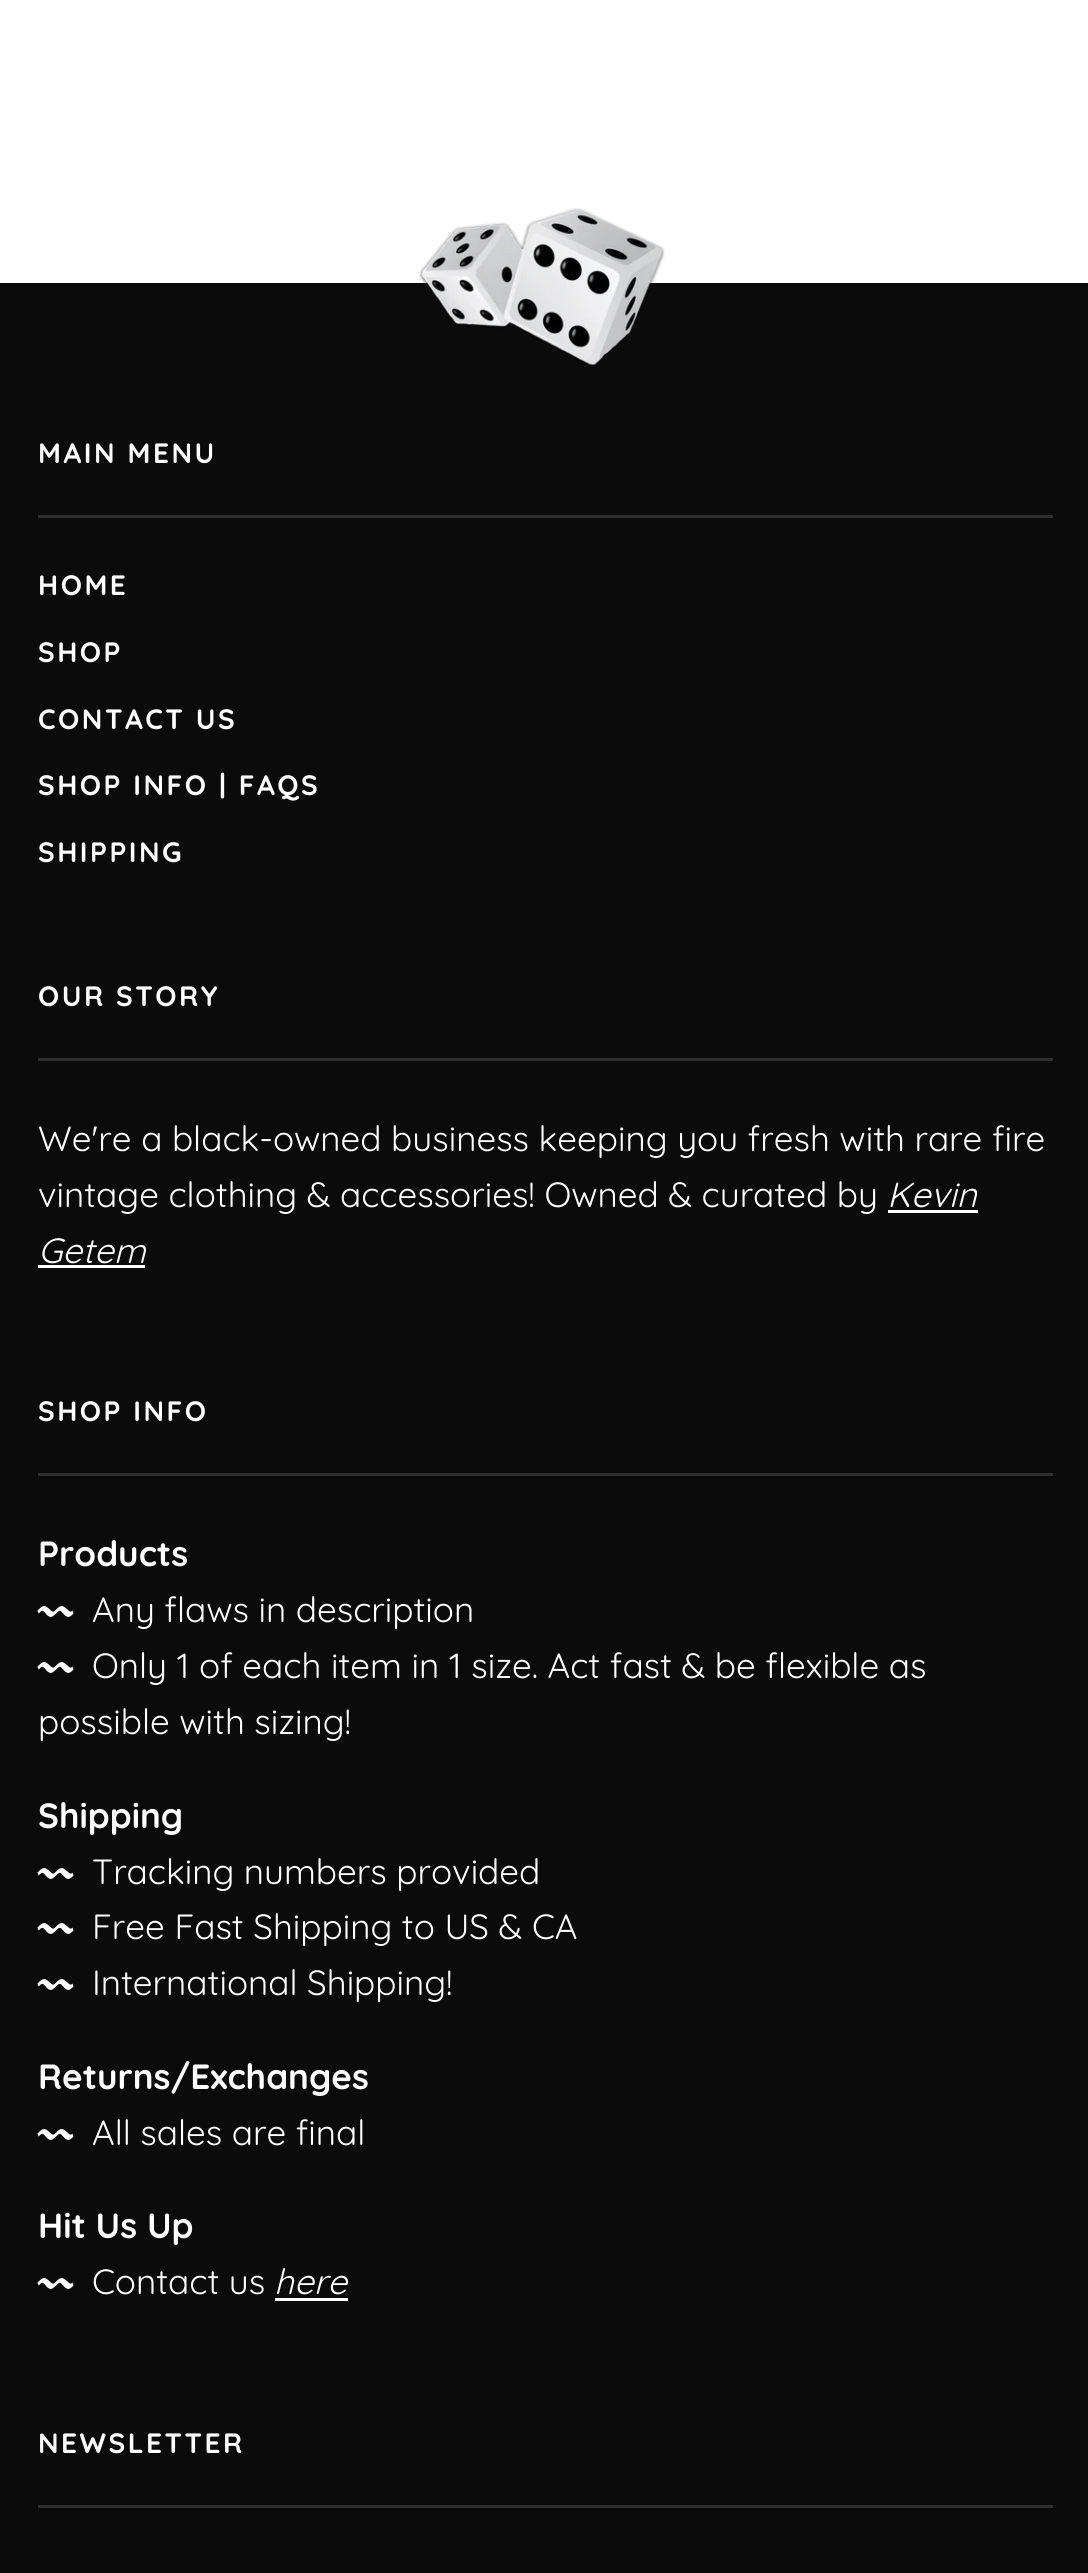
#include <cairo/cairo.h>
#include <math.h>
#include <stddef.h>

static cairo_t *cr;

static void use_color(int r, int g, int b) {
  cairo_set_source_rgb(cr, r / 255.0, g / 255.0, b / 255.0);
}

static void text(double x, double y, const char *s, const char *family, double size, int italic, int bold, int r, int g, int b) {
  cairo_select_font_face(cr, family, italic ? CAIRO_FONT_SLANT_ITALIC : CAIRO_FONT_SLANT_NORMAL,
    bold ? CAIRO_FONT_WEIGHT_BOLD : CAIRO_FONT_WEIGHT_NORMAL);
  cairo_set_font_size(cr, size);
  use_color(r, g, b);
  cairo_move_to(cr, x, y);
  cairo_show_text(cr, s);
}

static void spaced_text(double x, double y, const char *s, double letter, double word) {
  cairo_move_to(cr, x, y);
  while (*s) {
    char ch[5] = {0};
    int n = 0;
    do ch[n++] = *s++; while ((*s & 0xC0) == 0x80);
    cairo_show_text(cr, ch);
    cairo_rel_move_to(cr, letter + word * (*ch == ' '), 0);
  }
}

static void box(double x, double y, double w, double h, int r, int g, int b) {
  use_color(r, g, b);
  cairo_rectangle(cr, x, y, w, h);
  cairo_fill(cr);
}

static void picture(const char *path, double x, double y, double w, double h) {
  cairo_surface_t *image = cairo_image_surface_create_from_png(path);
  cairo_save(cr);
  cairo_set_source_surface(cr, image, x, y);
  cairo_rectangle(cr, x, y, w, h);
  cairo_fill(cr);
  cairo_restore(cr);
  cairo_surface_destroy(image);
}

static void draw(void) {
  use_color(255, 255, 255);
  cairo_paint(cr);
  box(0, 283, 1088, 2290, 12, 11, 11);
  picture("img_01.png", 418, 208, 247, 158);
  box(38, 515, 1015, 3, 48, 48, 48);
  box(38, 1058, 1015, 3, 48, 48, 48);
  box(888, 1210, 90, 3, 255, 255, 255);
  box(38, 1265, 107, 3, 255, 255, 255);
  box(38, 1473, 1015, 3, 48, 48, 48);
  box(275, 2298, 73, 3, 255, 255, 255);
  box(38, 2505, 1015, 3, 48, 48, 48);
  cairo_select_font_face(cr, "Quicksand", CAIRO_FONT_SLANT_NORMAL, CAIRO_FONT_WEIGHT_BOLD);
  cairo_set_font_size(cr, 28);
  use_color(255, 255, 255);
  spaced_text(38, 463, "MAIN MENU", 2.5, 0);
  spaced_text(38, 595, "HOME", 2.5, 0);
  spaced_text(38, 662, "SHOP", 2.5, 0);
  spaced_text(38, 729, "CONTACT US", 2.5, 0);
  spaced_text(38, 795, "SHOP INFO | FAQS", 2.5, 0);
  spaced_text(38, 862, "SHIPPING", 2.5, 0);
  spaced_text(38, 1006, "OUR STORY", 2.5, 0);
  text(38, 1151, "We're a black-owned business keeping you fresh with rare fire", "Quicksand", 35, 0, 0, 255, 255, 255);
  text(38, 1207, "vintage clothing & accessories! Owned & curated by", "Quicksand", 35, 0, 0, 255, 255, 255);
  text(887, 1207, "Kevin", "Quicksand", 35, 1, 0, 255, 255, 255);
  text(38, 1263, "Getem", "Quicksand", 35, 1, 0, 255, 255, 255);
  cairo_select_font_face(cr, "Quicksand", CAIRO_FONT_SLANT_NORMAL, CAIRO_FONT_WEIGHT_BOLD);
  cairo_set_font_size(cr, 28);
  spaced_text(38, 1421, "SHOP INFO", 2.5, 0);
  text(38, 1566, "Products", "Quicksand", 35, 0, 1, 255, 255, 255);
  text(38, 1622, "〰", "Otomanopee One", 35, 0, 0, 255, 255, 255);
  text(92, 1622, "Any flaws in description", "Quicksand", 35, 0, 0, 255, 255, 255);
  text(38, 1678, "〰", "Otomanopee One", 35, 0, 0, 255, 255, 255);
  text(92, 1678, "Only 1 of each item in 1 size. Act fast & be flexible as", "Quicksand", 35, 0, 0, 255, 255, 255);
  text(38, 1734, "possible with sizing!", "Quicksand", 35, 0, 0, 255, 255, 255);
  text(38, 1828, "Shipping", "Quicksand", 35, 0, 1, 255, 255, 255);
  text(38, 1884, "〰", "Otomanopee One", 35, 0, 0, 255, 255, 255);
  text(92, 1884, "Tracking numbers provided", "Quicksand", 35, 0, 0, 255, 255, 255);
  text(38, 1939, "〰", "Otomanopee One", 35, 0, 0, 255, 255, 255);
  text(92, 1939, "Free Fast Shipping to US & CA", "Quicksand", 35, 0, 0, 255, 255, 255);
  text(38, 1995, "〰", "Otomanopee One", 35, 0, 0, 255, 255, 255);
  text(92, 1995, "International Shipping!", "Quicksand", 35, 0, 0, 255, 255, 255);
  text(38, 2089, "Returns/Exchanges", "Quicksand", 35, 0, 1, 255, 255, 255);
  text(38, 2145, "〰", "Otomanopee One", 35, 0, 0, 255, 255, 255);
  text(92, 2145, "All sales are final", "Quicksand", 35, 0, 0, 255, 255, 255);
  text(38, 2238, "Hit Us Up", "Quicksand", 35, 0, 1, 255, 255, 255);
  text(38, 2294, "〰", "Otomanopee One", 35, 0, 0, 255, 255, 255);
  text(92, 2294, "Contact us", "Quicksand", 35, 0, 0, 255, 255, 255);
  text(274, 2294, "here", "Quicksand", 35, 1, 0, 255, 255, 255);
  cairo_select_font_face(cr, "Quicksand", CAIRO_FONT_SLANT_NORMAL, CAIRO_FONT_WEIGHT_BOLD);
  cairo_set_font_size(cr, 28);
  spaced_text(38, 2453, "NEWSLETTER", 2.5, 0);
}

int main(void) {
  cairo_surface_t *surface = cairo_image_surface_create(CAIRO_FORMAT_RGB24, 1088, 2573);
  cr = cairo_create(surface);
  cairo_font_options_t *options = cairo_font_options_create();
  cairo_font_options_set_hint_metrics(options, CAIRO_HINT_METRICS_OFF);
  cairo_font_options_set_hint_style(options, CAIRO_HINT_STYLE_NONE);
  cairo_set_font_options(cr, options);
  cairo_set_miter_limit(cr, 4);
  draw();
  cairo_surface_write_to_png(surface, "out.png");
  cairo_font_options_destroy(options);
  cairo_destroy(cr);
  cairo_surface_destroy(surface);
  return 0;
}
